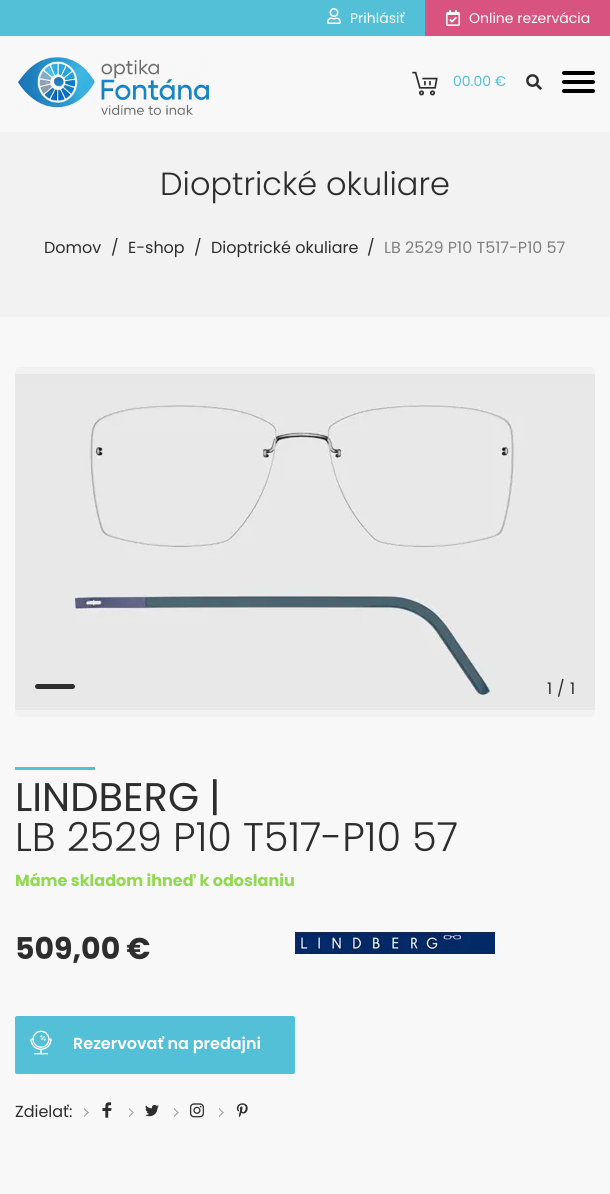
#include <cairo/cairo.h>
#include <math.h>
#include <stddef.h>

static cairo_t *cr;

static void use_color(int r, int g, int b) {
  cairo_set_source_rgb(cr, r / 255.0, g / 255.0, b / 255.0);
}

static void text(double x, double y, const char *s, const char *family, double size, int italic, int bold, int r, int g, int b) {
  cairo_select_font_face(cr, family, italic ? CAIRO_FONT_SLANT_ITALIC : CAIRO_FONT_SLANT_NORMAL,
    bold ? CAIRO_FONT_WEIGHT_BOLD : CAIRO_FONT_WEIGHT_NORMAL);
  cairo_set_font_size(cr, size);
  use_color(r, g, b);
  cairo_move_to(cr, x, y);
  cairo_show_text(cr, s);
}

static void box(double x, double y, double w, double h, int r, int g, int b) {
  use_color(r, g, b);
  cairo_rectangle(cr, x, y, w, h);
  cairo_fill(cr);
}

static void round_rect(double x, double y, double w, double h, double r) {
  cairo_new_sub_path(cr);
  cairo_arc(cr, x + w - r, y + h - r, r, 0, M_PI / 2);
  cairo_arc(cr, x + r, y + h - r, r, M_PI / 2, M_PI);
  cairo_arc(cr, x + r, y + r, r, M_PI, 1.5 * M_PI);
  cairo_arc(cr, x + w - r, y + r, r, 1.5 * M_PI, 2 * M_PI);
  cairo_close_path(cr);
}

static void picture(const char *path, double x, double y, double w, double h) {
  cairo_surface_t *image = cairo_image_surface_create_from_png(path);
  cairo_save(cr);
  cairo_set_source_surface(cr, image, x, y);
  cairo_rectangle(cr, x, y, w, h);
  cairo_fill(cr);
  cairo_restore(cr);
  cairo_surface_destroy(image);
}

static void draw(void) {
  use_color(248, 248, 248);
  cairo_paint(cr);
  box(0, 0, 425, 36, 83, 192, 216);
  picture("img_01.png", 327, 8, 14, 16);
  box(425, 0, 185, 36, 216, 83, 127);
  picture("img_02.png", 446, 10, 14, 16);
  picture("img_03.png", 17, 57, 193, 58);
  picture("img_04.png", 412, 71, 26, 25);
  picture("img_05.png", 526, 74, 16, 16);
  use_color(0, 0, 0);
  round_rect(562, 71, 33, 4, 2);
  cairo_fill(cr);
  round_rect(562, 80, 33, 4, 2);
  cairo_fill(cr);
  round_rect(562, 89, 33, 4, 2);
  cairo_fill(cr);
  box(0, 132, 610, 185, 242, 242, 242);
  round_rect(15, 367, 580, 350, 5);
  cairo_fill(cr);
  picture("img_06.png", 15, 374, 580, 336);
  use_color(45, 45, 45);
  round_rect(35, 684, 40, 5, 2.5);
  cairo_fill(cr);
  box(15, 767, 80, 3, 83, 192, 216);
  picture("img_07.png", 295, 932, 200, 22);
  round_rect(16, 1017, 278, 56, 1);
  cairo_fill_preserve(cr);
  cairo_stroke(cr);
  picture("img_08.png", 30, 1030, 22, 25);
  picture("img_09.png", 84, 1108, 5, 9);
  picture("img_10.png", 102, 1102, 10, 16);
  picture("img_09.png", 129, 1108, 5, 9);
  picture("img_11.png", 145, 1105, 14, 12);
  picture("img_09.png", 174, 1108, 5, 9);
  picture("img_12.png", 189, 1103, 15, 15);
  picture("img_09.png", 219, 1108, 5, 9);
  picture("img_13.png", 236, 1103, 12, 15);
  text(350, 23, "Prihlásiť", "Poppins", 14, 0, 0, 255, 255, 255);
  text(469, 23, "Online rezervácia", "Poppins", 14, 0, 0, 255, 255, 255);
  text(453, 86, "00.00 €", "Poppins", 14, 0, 0, 83, 192, 216);
  text(160, 195, "Dioptrické okuliare", "Poppins Light", 32, 0, 0, 45, 45, 45);
  text(44, 253, "Domov", "Poppins", 16, 0, 0, 45, 45, 45);
  text(111, 253, "/", "Poppins", 16, 0, 0, 45, 45, 45);
  text(128, 253, "E-shop", "Poppins", 16, 0, 0, 45, 45, 45);
  text(194, 253, "/", "Poppins", 16, 0, 0, 45, 45, 45);
  text(211, 253, "Dioptrické okuliare", "Poppins", 16, 0, 0, 45, 45, 45);
  text(367, 253, "/", "Poppins", 16, 0, 0, 45, 45, 45);
  text(384, 253, "LB 2529 P10 T517-P10 57", "Poppins", 16, 0, 0, 128, 128, 128);
  text(547, 694, "1", "Poppins", 16, 0, 0, 45, 45, 45);
  text(557, 694, "/", "Poppins", 16, 0, 0, 45, 45, 45);
  text(570, 694, "1", "Poppins", 16, 0, 0, 45, 45, 45);
  text(15, 811, "LINDBERG", "Poppins", 40, 0, 0, 45, 45, 45);
  text(209, 811, "|", "Poppins", 40, 0, 0, 45, 45, 45);
  text(15, 851, "LB 2529 P10 T517-P10 57", "Poppins Light", 40, 0, 0, 45, 45, 45);
  text(15, 886, "Máme skladom ihneď k odoslaniu", "Poppins", 16, 0, 1, 146, 216, 83);
  text(15, 959, "509,00 €", "Poppins", 30, 0, 1, 45, 45, 45);
  text(73, 1049, "Rezervovať na predajni", "Poppins SemiBold", 16, 0, 0, 255, 255, 255);
  text(15, 1117, "Zdielať:", "Poppins", 16, 0, 0, 45, 45, 45);
}

int main(void) {
  cairo_surface_t *surface = cairo_image_surface_create(CAIRO_FORMAT_RGB24, 610, 1194);
  cr = cairo_create(surface);
  cairo_font_options_t *options = cairo_font_options_create();
  cairo_font_options_set_hint_metrics(options, CAIRO_HINT_METRICS_OFF);
  cairo_font_options_set_hint_style(options, CAIRO_HINT_STYLE_NONE);
  cairo_set_font_options(cr, options);
  cairo_set_miter_limit(cr, 4);
  draw();
  cairo_surface_write_to_png(surface, "out.png");
  cairo_font_options_destroy(options);
  cairo_destroy(cr);
  cairo_surface_destroy(surface);
  return 0;
}
